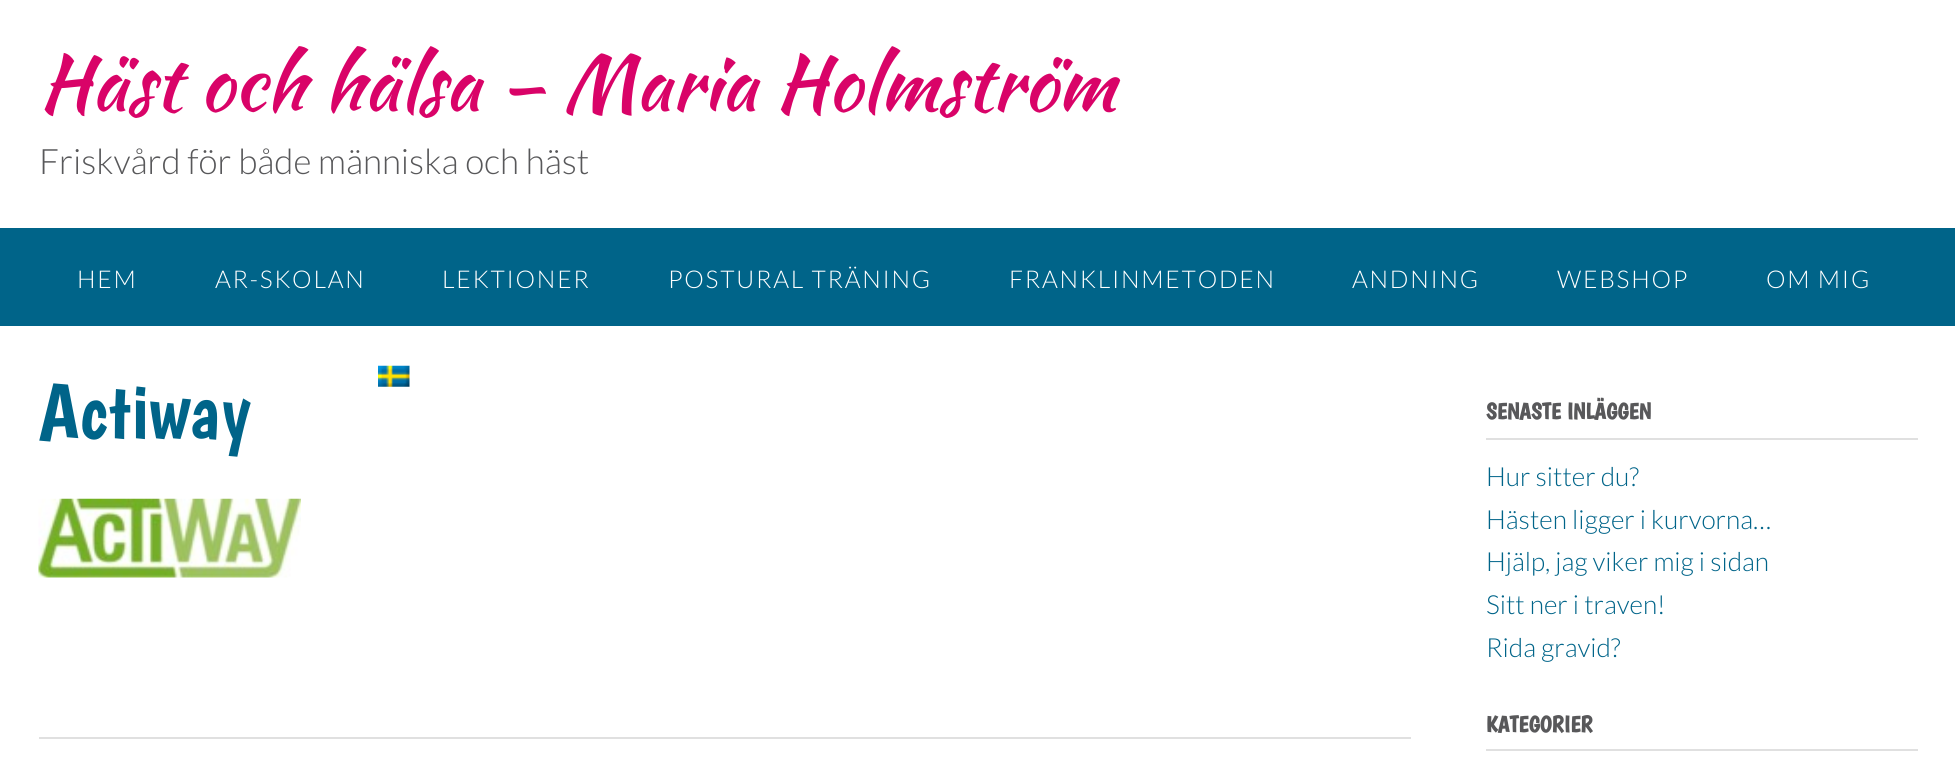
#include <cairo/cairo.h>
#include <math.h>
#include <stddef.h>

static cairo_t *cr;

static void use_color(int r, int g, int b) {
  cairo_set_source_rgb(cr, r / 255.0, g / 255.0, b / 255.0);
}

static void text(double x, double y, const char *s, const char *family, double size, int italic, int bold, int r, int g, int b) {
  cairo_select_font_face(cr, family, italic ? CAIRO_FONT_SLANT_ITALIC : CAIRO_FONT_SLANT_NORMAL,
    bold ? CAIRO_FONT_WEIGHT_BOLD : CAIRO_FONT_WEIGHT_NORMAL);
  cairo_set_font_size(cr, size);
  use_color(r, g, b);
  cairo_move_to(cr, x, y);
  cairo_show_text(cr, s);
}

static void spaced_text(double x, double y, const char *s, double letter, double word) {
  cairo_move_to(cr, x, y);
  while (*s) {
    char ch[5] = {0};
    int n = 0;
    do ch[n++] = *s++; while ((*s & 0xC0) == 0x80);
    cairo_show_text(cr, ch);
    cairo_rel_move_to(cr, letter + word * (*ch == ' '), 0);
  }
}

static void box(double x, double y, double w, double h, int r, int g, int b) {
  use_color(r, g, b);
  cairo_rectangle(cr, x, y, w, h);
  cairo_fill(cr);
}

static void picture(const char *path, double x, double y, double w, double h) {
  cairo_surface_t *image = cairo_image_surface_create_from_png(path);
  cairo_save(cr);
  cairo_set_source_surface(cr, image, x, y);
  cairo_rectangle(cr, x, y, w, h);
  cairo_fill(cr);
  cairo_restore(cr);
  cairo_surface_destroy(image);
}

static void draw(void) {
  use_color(255, 255, 255);
  cairo_paint(cr);
  box(0, 228, 1955, 98, 0, 100, 137);
  picture("img_01.png", 378, 365, 32, 22);
  box(39, 737, 1372, 2, 224, 224, 224);
  picture("img_02.png", 38, 498, 263, 80);
  box(1486, 438, 432, 2, 224, 224, 224);
  box(1486, 749, 432, 2, 224, 224, 224);
  text(39, 110, "Häst och hälsa – Maria Holmström", "Kaushan Script", 77, 0, 0, 217, 3, 104);
  text(39, 174, "Friskvård för både människa och häst", "Lato Light", 35, 0, 0, 88, 88, 90);
  cairo_set_font_size(cr, 24.5);
  use_color(255, 255, 255);
  spaced_text(77, 288, "HEM", 1.75, 0);
  spaced_text(215, 288, "AR-SKOLAN", 1.75, 0);
  spaced_text(442, 288, "LEKTIONER", 1.75, 0);
  spaced_text(668, 288, "POSTURAL TRÄNING", 1.75, 0);
  spaced_text(1009, 288, "FRANKLINMETODEN", 1.75, 0);
  spaced_text(1352, 288, "ANDNING", 1.75, 0);
  spaced_text(1557, 288, "WEBSHOP", 1.75, 0);
  spaced_text(1766, 288, "OM MIG", 1.75, 0);
  text(39, 438, "Actiway", "Boogaloo", 79, 0, 0, 0, 100, 137);
  text(1486, 419, "SENASTE INLÄGGEN", "Boogaloo", 22.75, 0, 1, 88, 88, 90);
  text(1486, 486, "Hur sitter du?", "Lato Light", 26.25, 0, 0, 0, 100, 137);
  text(1486, 529, "Hästen ligger i kurvorna…", "Lato Light", 26.25, 0, 0, 0, 100, 137);
  text(1486, 571, "Hjälp, jag viker mig i sidan", "Lato Light", 26.25, 0, 0, 0, 100, 137);
  text(1486, 614, "Sitt ner i traven!", "Lato Light", 26.25, 0, 0, 0, 100, 137);
  text(1486, 657, "Rida gravid?", "Lato Light", 26.25, 0, 0, 0, 100, 137);
  text(1486, 732, "KATEGORIER", "Boogaloo", 22.75, 0, 1, 88, 88, 90);
}

int main(void) {
  cairo_surface_t *surface = cairo_image_surface_create(CAIRO_FORMAT_RGB24, 1955, 766);
  cr = cairo_create(surface);
  cairo_font_options_t *options = cairo_font_options_create();
  cairo_font_options_set_hint_metrics(options, CAIRO_HINT_METRICS_OFF);
  cairo_font_options_set_hint_style(options, CAIRO_HINT_STYLE_NONE);
  cairo_set_font_options(cr, options);
  cairo_set_miter_limit(cr, 4);
  draw();
  cairo_surface_write_to_png(surface, "out.png");
  cairo_font_options_destroy(options);
  cairo_destroy(cr);
  cairo_surface_destroy(surface);
  return 0;
}
